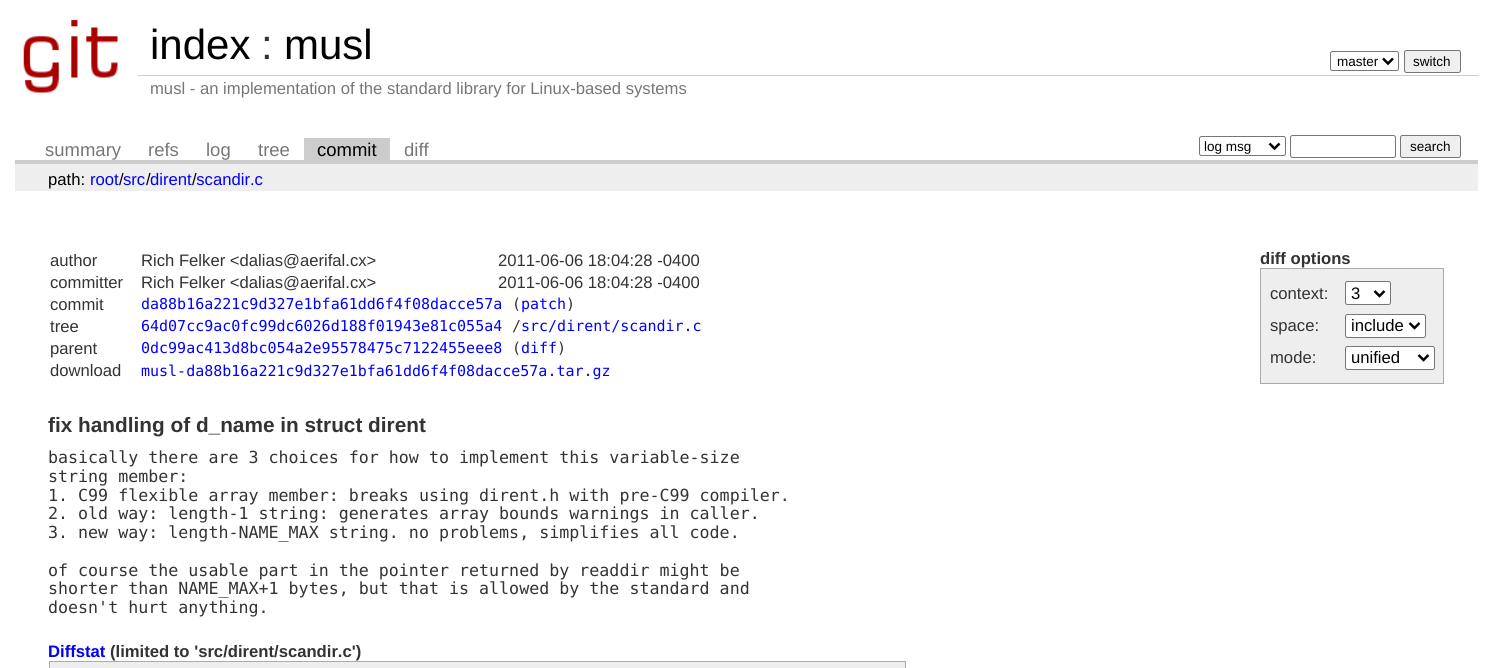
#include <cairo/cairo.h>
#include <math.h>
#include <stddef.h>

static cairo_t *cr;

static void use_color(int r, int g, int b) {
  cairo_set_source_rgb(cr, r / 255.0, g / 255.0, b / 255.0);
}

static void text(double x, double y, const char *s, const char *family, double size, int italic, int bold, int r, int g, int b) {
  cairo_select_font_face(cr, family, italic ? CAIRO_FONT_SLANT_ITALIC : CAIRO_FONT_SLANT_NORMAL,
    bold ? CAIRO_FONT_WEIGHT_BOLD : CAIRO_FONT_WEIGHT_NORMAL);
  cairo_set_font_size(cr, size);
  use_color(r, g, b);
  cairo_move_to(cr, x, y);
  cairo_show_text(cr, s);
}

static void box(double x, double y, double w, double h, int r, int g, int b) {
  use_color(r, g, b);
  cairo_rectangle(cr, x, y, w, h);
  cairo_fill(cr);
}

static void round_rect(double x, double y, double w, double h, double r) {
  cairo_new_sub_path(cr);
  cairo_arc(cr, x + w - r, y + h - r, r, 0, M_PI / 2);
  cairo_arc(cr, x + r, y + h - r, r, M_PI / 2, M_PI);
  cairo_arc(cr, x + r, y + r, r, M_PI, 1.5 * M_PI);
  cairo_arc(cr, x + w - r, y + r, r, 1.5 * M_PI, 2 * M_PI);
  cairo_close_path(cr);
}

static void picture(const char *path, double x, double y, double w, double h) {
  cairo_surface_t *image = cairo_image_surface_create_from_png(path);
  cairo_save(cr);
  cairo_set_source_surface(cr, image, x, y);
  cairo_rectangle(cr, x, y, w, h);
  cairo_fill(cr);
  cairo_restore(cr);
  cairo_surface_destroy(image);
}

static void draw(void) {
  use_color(255, 255, 255);
  cairo_paint(cr);
  picture("img_01.png", 23, 19, 95, 74);
  round_rect(1330.5, 51.5, 68, 19, 2);
  use_color(118, 118, 118);
  cairo_set_line_width(cr, 1);
  cairo_stroke(cr);
  cairo_new_path(cr);
  cairo_move_to(cr, 1383, 58.5);
  cairo_line_to(cr, 1388, 63.5);
  cairo_line_to(cr, 1393, 58.5);
  use_color(0, 0, 0);
  cairo_set_line_width(cr, 2.5);
  cairo_stroke(cr);
  use_color(239, 239, 239);
  round_rect(1404.5, 50.5, 56, 22, 2);
  cairo_fill_preserve(cr);
  use_color(118, 118, 118);
  cairo_set_line_width(cr, 1);
  cairo_stroke(cr);
  box(138, 75, 1341, 1, 204, 204, 204);
  box(15, 160, 1463, 4, 204, 204, 204);
  box(304, 138, 86, 22, 204, 204, 204);
  round_rect(1199.5, 136.5, 86, 19, 2);
  use_color(118, 118, 118);
  cairo_stroke(cr);
  cairo_new_path(cr);
  cairo_move_to(cr, 1269.5, 143.5);
  cairo_line_to(cr, 1274.5, 148.5);
  cairo_line_to(cr, 1279.5, 143.5);
  use_color(0, 0, 0);
  cairo_set_line_width(cr, 2.5);
  cairo_stroke(cr);
  round_rect(1290.5, 135.5, 105, 22, 2);
  use_color(118, 118, 118);
  cairo_set_line_width(cr, 1);
  cairo_stroke(cr);
  use_color(239, 239, 239);
  round_rect(1400.5, 135.5, 60, 22, 2);
  cairo_fill_preserve(cr);
  use_color(118, 118, 118);
  cairo_stroke(cr);
  box(15, 164, 1463, 27, 238, 238, 238);
  box(1261, 269, 182, 114, 238, 238, 238);
  box(1260, 268, 184, 1, 170, 170, 170);
  box(1443, 268, 1, 116, 170, 170, 170);
  box(1260, 383, 184, 1, 170, 170, 170);
  box(1260, 268, 1, 116, 170, 170, 170);
  use_color(255, 255, 255);
  round_rect(1345.5, 281.5, 45, 23, 2);
  cairo_fill_preserve(cr);
  use_color(118, 118, 118);
  cairo_stroke(cr);
  cairo_new_path(cr);
  cairo_move_to(cr, 1374.5, 291);
  cairo_line_to(cr, 1379.5, 296);
  cairo_line_to(cr, 1384.5, 291);
  use_color(0, 0, 0);
  cairo_set_line_width(cr, 2.5);
  cairo_stroke(cr);
  use_color(255, 255, 255);
  round_rect(1345.5, 314.5, 80, 23, 2);
  cairo_fill_preserve(cr);
  use_color(118, 118, 118);
  cairo_set_line_width(cr, 1);
  cairo_stroke(cr);
  cairo_new_path(cr);
  cairo_move_to(cr, 1409.5, 323);
  cairo_line_to(cr, 1414.5, 328);
  cairo_line_to(cr, 1419.5, 323);
  use_color(0, 0, 0);
  cairo_set_line_width(cr, 2.5);
  cairo_stroke(cr);
  use_color(255, 255, 255);
  round_rect(1345.5, 346.5, 89, 23, 2);
  cairo_fill_preserve(cr);
  use_color(118, 118, 118);
  cairo_set_line_width(cr, 1);
  cairo_stroke(cr);
  cairo_new_path(cr);
  cairo_move_to(cr, 1418.5, 355);
  cairo_line_to(cr, 1423.5, 360);
  cairo_line_to(cr, 1428.5, 355);
  use_color(0, 0, 0);
  cairo_set_line_width(cr, 2.5);
  cairo_stroke(cr);
  box(49, 662, 857, 6, 238, 238, 238);
  box(49, 661, 857, 1, 170, 170, 170);
  box(905, 661, 1, 7, 170, 170, 170);
  box(49, 661, 1, 7, 170, 170, 170);
  text(150, 59, "index", "Liberation Sans", 42, 0, 0, 0, 0, 0);
  text(261, 59, ":", "Liberation Sans", 42, 0, 0, 51, 51, 51);
  text(284, 59, "musl", "Liberation Sans", 42, 0, 0, 0, 0, 0);
  text(1337, 66, "master", "Liberation Sans", 13.5, 0, 0, 0, 0, 0);
  text(1413, 66, "switch", "Liberation Sans", 13.5, 0, 0, 0, 0, 0);
  text(150, 94, "musl - an implementation of the standard library for Linux-based systems", "Liberation Sans", 16.65, 0, 0, 119, 119, 119);
  text(45, 156, "summary", "Liberation Sans", 18.5, 0, 0, 119, 119, 119);
  text(148, 156, "refs", "Liberation Sans", 18.5, 0, 0, 119, 119, 119);
  text(206, 156, "log", "Liberation Sans", 18.5, 0, 0, 119, 119, 119);
  text(258, 156, "tree", "Liberation Sans", 18.5, 0, 0, 119, 119, 119);
  text(317, 156, "commit", "Liberation Sans", 18.5, 0, 0, 0, 0, 0);
  text(404, 156, "diff", "Liberation Sans", 18.5, 0, 0, 119, 119, 119);
  text(1204, 151, "log msg", "Liberation Sans", 13.5, 0, 0, 0, 0, 0);
  text(1410, 151, "search", "Liberation Sans", 13.5, 0, 0, 0, 0, 0);
  text(48, 185, "path:", "Liberation Sans", 16.65, 0, 0, 0, 0, 0);
  text(90, 185, "root", "Liberation Sans", 16.65, 0, 0, 0, 0, 255);
  text(119, 185, "/", "Liberation Sans", 16.65, 0, 0, 0, 0, 0);
  text(123, 185, "src", "Liberation Sans", 16.65, 0, 0, 0, 0, 255);
  text(146, 185, "/", "Liberation Sans", 16.65, 0, 0, 0, 0, 0);
  text(150, 185, "dirent scandir.c", "Liberation Sans", 16.65, 0, 0, 0, 0, 255);
  text(192, 185, "/", "Liberation Sans", 16.65, 0, 0, 0, 0, 0);
  text(50, 266, "author", "Liberation Sans", 16.65, 0, 0, 51, 51, 51);
  text(141, 266, "Rich Felker <dalias@aerifal.cx>", "Liberation Sans", 16.65, 0, 0, 51, 51, 51);
  text(498, 266, "2011-06-06 18:04:28 -0400", "Liberation Sans", 16.65, 0, 0, 51, 51, 51);
  text(50, 288, "committer", "Liberation Sans", 16.65, 0, 0, 51, 51, 51);
  text(141, 288, "Rich Felker <dalias@aerifal.cx>", "Liberation Sans", 16.65, 0, 0, 51, 51, 51);
  text(498, 288, "2011-06-06 18:04:28 -0400", "Liberation Sans", 16.65, 0, 0, 51, 51, 51);
  text(50, 310, "commit", "Liberation Sans", 16.65, 0, 0, 51, 51, 51);
  text(141, 309, "da88b16a221c9d327e1bfa61dd6f4f08dacce57a", "DejaVu Sans Mono", 15, 0, 0, 0, 0, 255);
  text(512, 309, "(", "DejaVu Sans Mono", 15, 0, 0, 51, 51, 51);
  text(521, 309, "patch", "DejaVu Sans Mono", 15, 0, 0, 0, 0, 255);
  text(566, 309, ")", "DejaVu Sans Mono", 15, 0, 0, 51, 51, 51);
  text(50, 332, "tree", "Liberation Sans", 16.65, 0, 0, 51, 51, 51);
  text(141, 331, "64d07cc9ac0fc99dc6026d188f01943e81c055a4", "DejaVu Sans Mono", 15, 0, 0, 0, 0, 255);
  text(512, 331, "/", "DejaVu Sans Mono", 15, 0, 0, 51, 51, 51);
  text(521, 331, "src/dirent/scandir.c", "DejaVu Sans Mono", 15, 0, 0, 0, 0, 255);
  text(50, 354, "parent", "Liberation Sans", 16.65, 0, 0, 51, 51, 51);
  text(141, 353, "0dc99ac413d8bc054a2e95578475c7122455eee8", "DejaVu Sans Mono", 15, 0, 0, 0, 0, 255);
  text(512, 353, "(", "DejaVu Sans Mono", 15, 0, 0, 51, 51, 51);
  text(521, 353, "diff", "DejaVu Sans Mono", 15, 0, 0, 0, 0, 255);
  text(557, 353, ")", "DejaVu Sans Mono", 15, 0, 0, 51, 51, 51);
  text(50, 376, "download", "Liberation Sans", 16.65, 0, 0, 51, 51, 51);
  text(141, 376, "musl-da88b16a221c9d327e1bfa61dd6f4f08dacce57a.tar.gz", "DejaVu Sans Mono", 15, 0, 0, 0, 0, 255);
  text(1260, 264, "diff options", "Liberation Sans", 16.65, 0, 1, 51, 51, 51);
  text(1270, 299, "context:", "Liberation Sans", 16.65, 0, 0, 51, 51, 51);
  text(1351, 299, "3", "Liberation Sans", 16.65, 0, 0, 0, 0, 0);
  text(1270, 331, "space:", "Liberation Sans", 16.65, 0, 0, 51, 51, 51);
  text(1351, 331, "include", "Liberation Sans", 16.65, 0, 0, 0, 0, 0);
  text(1270, 363, "mode:", "Liberation Sans", 16.65, 0, 0, 51, 51, 51);
  text(1351, 363, "unified", "Liberation Sans", 16.65, 0, 0, 0, 0, 0);
  text(48, 432, "fix handling of d_name in struct dirent", "Liberation Sans", 20.8, 0, 1, 51, 51, 51);
  text(48, 463, "basically there are 3 choices for how to implement this variable-size", "DejaVu Sans Mono", 16.65, 0, 0, 51, 51, 51);
  text(48, 482, "string member:", "DejaVu Sans Mono", 16.65, 0, 0, 51, 51, 51);
  text(48, 501, "1. C99 flexible array member: breaks using dirent.h with pre-C99 compiler.", "DejaVu Sans Mono", 16.65, 0, 0, 51, 51, 51);
  text(48, 519, "2. old way: length-1 string: generates array bounds warnings in caller.", "DejaVu Sans Mono", 16.65, 0, 0, 51, 51, 51);
  text(48, 538, "3. new way: length-NAME_MAX string. no problems, simplifies all code.", "DejaVu Sans Mono", 16.65, 0, 0, 51, 51, 51);
  text(48, 576, "of course the usable part in the pointer returned by readdir might be", "DejaVu Sans Mono", 16.65, 0, 0, 51, 51, 51);
  text(48, 594, "shorter than NAME_MAX+1 bytes, but that is allowed by the standard and", "DejaVu Sans Mono", 16.65, 0, 0, 51, 51, 51);
  text(48, 613, "doesn't hurt anything.", "DejaVu Sans Mono", 16.65, 0, 0, 51, 51, 51);
  text(48, 657, "Diffstat", "Liberation Sans", 16.65, 0, 1, 0, 0, 255);
  text(110, 657, "(limited to 'src/dirent/scandir.c')", "Liberation Sans", 16.65, 0, 1, 51, 51, 51);
}

int main(void) {
  cairo_surface_t *surface = cairo_image_surface_create(CAIRO_FORMAT_RGB24, 1492, 668);
  cr = cairo_create(surface);
  cairo_font_options_t *options = cairo_font_options_create();
  cairo_font_options_set_hint_metrics(options, CAIRO_HINT_METRICS_OFF);
  cairo_font_options_set_hint_style(options, CAIRO_HINT_STYLE_NONE);
  cairo_set_font_options(cr, options);
  cairo_set_miter_limit(cr, 4);
  draw();
  cairo_surface_write_to_png(surface, "out.png");
  cairo_font_options_destroy(options);
  cairo_destroy(cr);
  cairo_surface_destroy(surface);
  return 0;
}
